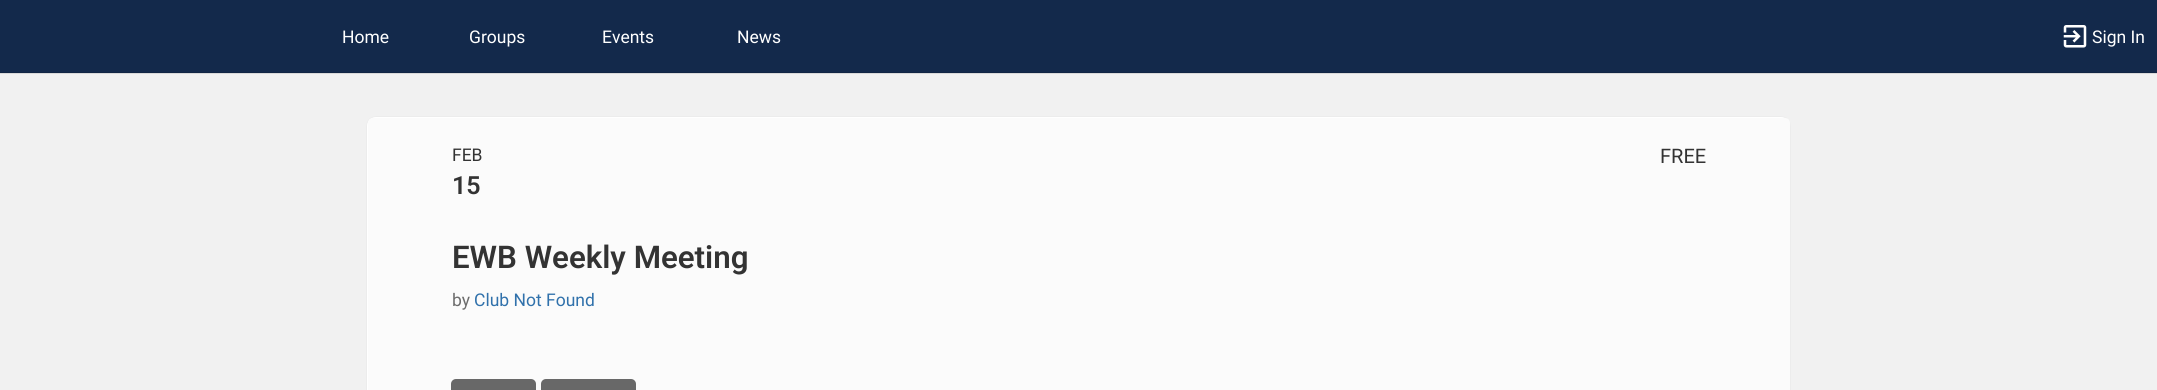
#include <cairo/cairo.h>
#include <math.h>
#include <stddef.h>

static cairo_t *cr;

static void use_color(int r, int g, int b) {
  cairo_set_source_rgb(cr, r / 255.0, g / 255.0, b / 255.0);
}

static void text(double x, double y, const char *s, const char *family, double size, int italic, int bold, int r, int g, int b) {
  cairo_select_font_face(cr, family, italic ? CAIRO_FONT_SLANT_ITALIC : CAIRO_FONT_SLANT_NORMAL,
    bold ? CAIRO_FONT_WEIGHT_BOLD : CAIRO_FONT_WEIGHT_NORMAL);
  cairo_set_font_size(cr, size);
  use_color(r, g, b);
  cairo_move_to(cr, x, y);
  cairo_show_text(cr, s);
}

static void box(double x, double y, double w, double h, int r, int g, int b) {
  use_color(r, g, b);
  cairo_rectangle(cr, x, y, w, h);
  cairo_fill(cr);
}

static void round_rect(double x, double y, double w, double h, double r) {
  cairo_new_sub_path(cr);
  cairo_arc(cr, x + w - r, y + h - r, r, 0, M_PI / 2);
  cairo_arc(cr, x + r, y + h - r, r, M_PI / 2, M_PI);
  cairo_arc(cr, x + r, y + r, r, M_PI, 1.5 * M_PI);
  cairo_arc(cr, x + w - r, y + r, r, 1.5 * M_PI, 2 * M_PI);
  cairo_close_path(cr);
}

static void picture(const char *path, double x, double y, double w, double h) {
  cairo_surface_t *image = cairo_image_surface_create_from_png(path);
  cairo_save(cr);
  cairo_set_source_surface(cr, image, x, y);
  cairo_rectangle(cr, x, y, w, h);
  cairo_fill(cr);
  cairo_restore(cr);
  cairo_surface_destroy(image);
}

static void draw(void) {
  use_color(241, 241, 241);
  cairo_paint(cr);
  box(0, 73, 300, 1, 217, 217, 217);
  box(0, 0, 2157, 73, 19, 41, 75);
  box(0, 72, 300, 1, 17, 37, 68);
  cairo_set_source_rgba(cr, 0, 0, 0, 0.1);
  cairo_new_path(cr);
  cairo_move_to(cr, 300, 72);
  cairo_line_to(cr, 300, 74);
  cairo_line_to(cr, 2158, 74);
  cairo_line_to(cr, 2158, 1);
  cairo_line_to(cr, 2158, 72);
  cairo_close_path(cr);
  cairo_fill(cr);
  picture("img_01.png", 2063, 25, 24, 23);
  use_color(255, 255, 255);
  round_rect(366.5, 116.5, 1424, 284, 9.5);
  cairo_fill_preserve(cr);
  use_color(236, 236, 236);
  cairo_set_line_width(cr, 1);
  cairo_stroke(cr);
  use_color(251, 251, 251);
  cairo_new_path(cr);
  cairo_move_to(cr, 373, 118);
  cairo_line_to(cr, 1785, 118);
  cairo_curve_to(cr, 1788, 118, 1790, 120, 1790, 123);
  cairo_line_to(cr, 1790, 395);
  cairo_line_to(cr, 368, 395);
  cairo_line_to(cr, 368, 123);
  cairo_curve_to(cr, 368, 120, 370, 118, 373, 118);
  cairo_close_path(cr);
  cairo_fill(cr);
  use_color(104, 104, 104);
  round_rect(451, 379, 85, 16, 5);
  cairo_fill(cr);
  round_rect(541, 379, 95, 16, 5);
  cairo_fill(cr);
  text(342, 43, "Home", "Roboto", 17.5, 0, 0, 255, 255, 255);
  text(469, 43, "Groups", "Roboto", 17.5, 0, 0, 255, 255, 255);
  text(602, 43, "Events", "Roboto", 17.5, 0, 0, 255, 255, 255);
  text(737, 43, "News", "Roboto", 17.5, 0, 0, 255, 255, 255);
  text(2092, 43, "Sign In", "Roboto", 17.5, 0, 0, 255, 255, 255);
  text(452, 161, "FEB", "Roboto", 17.5, 0, 0, 51, 51, 51);
  text(1660, 163, "FREE", "Roboto", 20, 0, 0, 51, 51, 51);
  text(452, 194, "15", "Roboto SemiBold", 25, 0, 0, 51, 51, 51);
  text(452, 268, "EWB Weekly Meeting", "Roboto SemiBold", 31.25, 0, 0, 51, 51, 51);
  text(452, 306, "by", "Roboto", 17.5, 0, 0, 108, 108, 108);
  text(474, 306, "Club Not Found", "Roboto", 17.5, 0, 0, 48, 113, 171);
}

int main(void) {
  cairo_surface_t *surface = cairo_image_surface_create(CAIRO_FORMAT_RGB24, 2157, 390);
  cr = cairo_create(surface);
  cairo_font_options_t *options = cairo_font_options_create();
  cairo_font_options_set_hint_metrics(options, CAIRO_HINT_METRICS_OFF);
  cairo_font_options_set_hint_style(options, CAIRO_HINT_STYLE_NONE);
  cairo_set_font_options(cr, options);
  cairo_set_miter_limit(cr, 4);
  draw();
  cairo_surface_write_to_png(surface, "out.png");
  cairo_font_options_destroy(options);
  cairo_destroy(cr);
  cairo_surface_destroy(surface);
  return 0;
}
